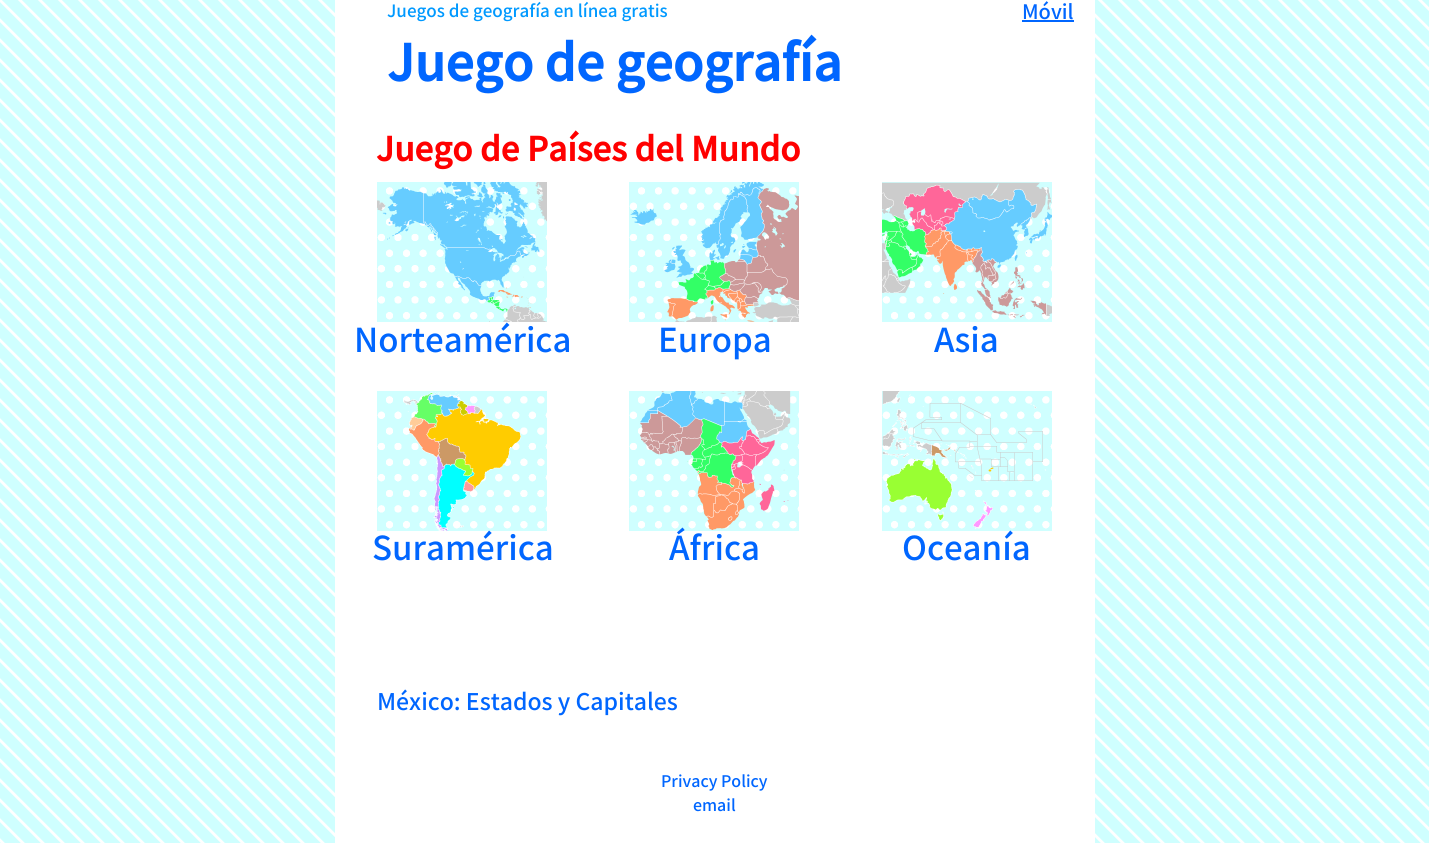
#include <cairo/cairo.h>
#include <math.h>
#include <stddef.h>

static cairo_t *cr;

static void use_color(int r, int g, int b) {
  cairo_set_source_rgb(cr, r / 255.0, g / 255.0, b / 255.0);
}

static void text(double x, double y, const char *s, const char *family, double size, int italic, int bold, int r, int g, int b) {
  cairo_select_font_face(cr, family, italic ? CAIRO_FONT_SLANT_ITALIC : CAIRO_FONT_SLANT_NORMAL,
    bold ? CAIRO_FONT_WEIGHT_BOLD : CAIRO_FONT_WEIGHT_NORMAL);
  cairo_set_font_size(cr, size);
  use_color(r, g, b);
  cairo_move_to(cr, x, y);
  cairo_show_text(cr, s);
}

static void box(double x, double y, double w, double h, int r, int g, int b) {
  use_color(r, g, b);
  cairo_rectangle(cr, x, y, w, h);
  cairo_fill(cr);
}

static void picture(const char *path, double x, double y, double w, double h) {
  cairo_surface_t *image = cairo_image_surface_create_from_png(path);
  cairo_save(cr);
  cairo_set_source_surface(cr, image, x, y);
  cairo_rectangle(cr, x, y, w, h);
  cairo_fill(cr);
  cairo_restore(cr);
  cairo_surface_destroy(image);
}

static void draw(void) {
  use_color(255, 255, 255);
  cairo_paint(cr);
  picture("img_01.png", 0, 0, 1429, 843);
  box(335, 0, 760, 843, 255, 255, 255);
  box(1022, 20, 52, 2, 0, 102, 255);
  picture("img_02.png", 377, 182, 170, 140);
  picture("img_03.png", 629, 182, 170, 140);
  picture("img_04.png", 882, 182, 170, 140);
  picture("img_05.png", 377, 391, 170, 140);
  picture("img_06.png", 629, 391, 170, 140);
  picture("img_07.png", 882, 391, 170, 140);
  text(387, 17, "Juegos de geografía en línea gratis", "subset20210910 Medium", 17, 0, 0, 0, 153, 255);
  text(387, 81, "Juego de geografía", "subset20210910", 50, 0, 1, 0, 102, 255);
  text(1022, 19, "Móvil", "subset20210910 Medium", 20, 0, 0, 0, 102, 255);
  text(376, 161, "Juego de Países del Mundo", "subset20210910", 33, 0, 1, 255, 0, 0);
  text(354, 352, "Norteamérica", "subset20210910 Medium", 33, 0, 0, 0, 102, 255);
  text(658, 352, "Europa", "subset20210910 Medium", 33, 0, 0, 0, 102, 255);
  text(934, 352, "Asia", "subset20210910 Medium", 33, 0, 0, 0, 102, 255);
  text(372, 560, "Suramérica", "subset20210910 Medium", 33, 0, 0, 0, 102, 255);
  text(669, 560, "África", "subset20210910 Medium", 33, 0, 0, 0, 102, 255);
  text(902, 560, "Oceanía", "subset20210910 Medium", 33, 0, 0, 0, 102, 255);
  text(377, 710, "México: Estados y Capitales", "subset20210910 Medium", 23, 0, 0, 0, 102, 255);
  text(661, 787, "Privacy Policy", "subset20210910 Medium", 16, 0, 0, 0, 102, 255);
  text(693, 811, "email", "subset20210910 Medium", 16, 0, 0, 0, 102, 255);
}

int main(void) {
  cairo_surface_t *surface = cairo_image_surface_create(CAIRO_FORMAT_RGB24, 1429, 843);
  cr = cairo_create(surface);
  cairo_font_options_t *options = cairo_font_options_create();
  cairo_font_options_set_hint_metrics(options, CAIRO_HINT_METRICS_OFF);
  cairo_font_options_set_hint_style(options, CAIRO_HINT_STYLE_NONE);
  cairo_set_font_options(cr, options);
  cairo_set_miter_limit(cr, 4);
  draw();
  cairo_surface_write_to_png(surface, "out.png");
  cairo_font_options_destroy(options);
  cairo_destroy(cr);
  cairo_surface_destroy(surface);
  return 0;
}
